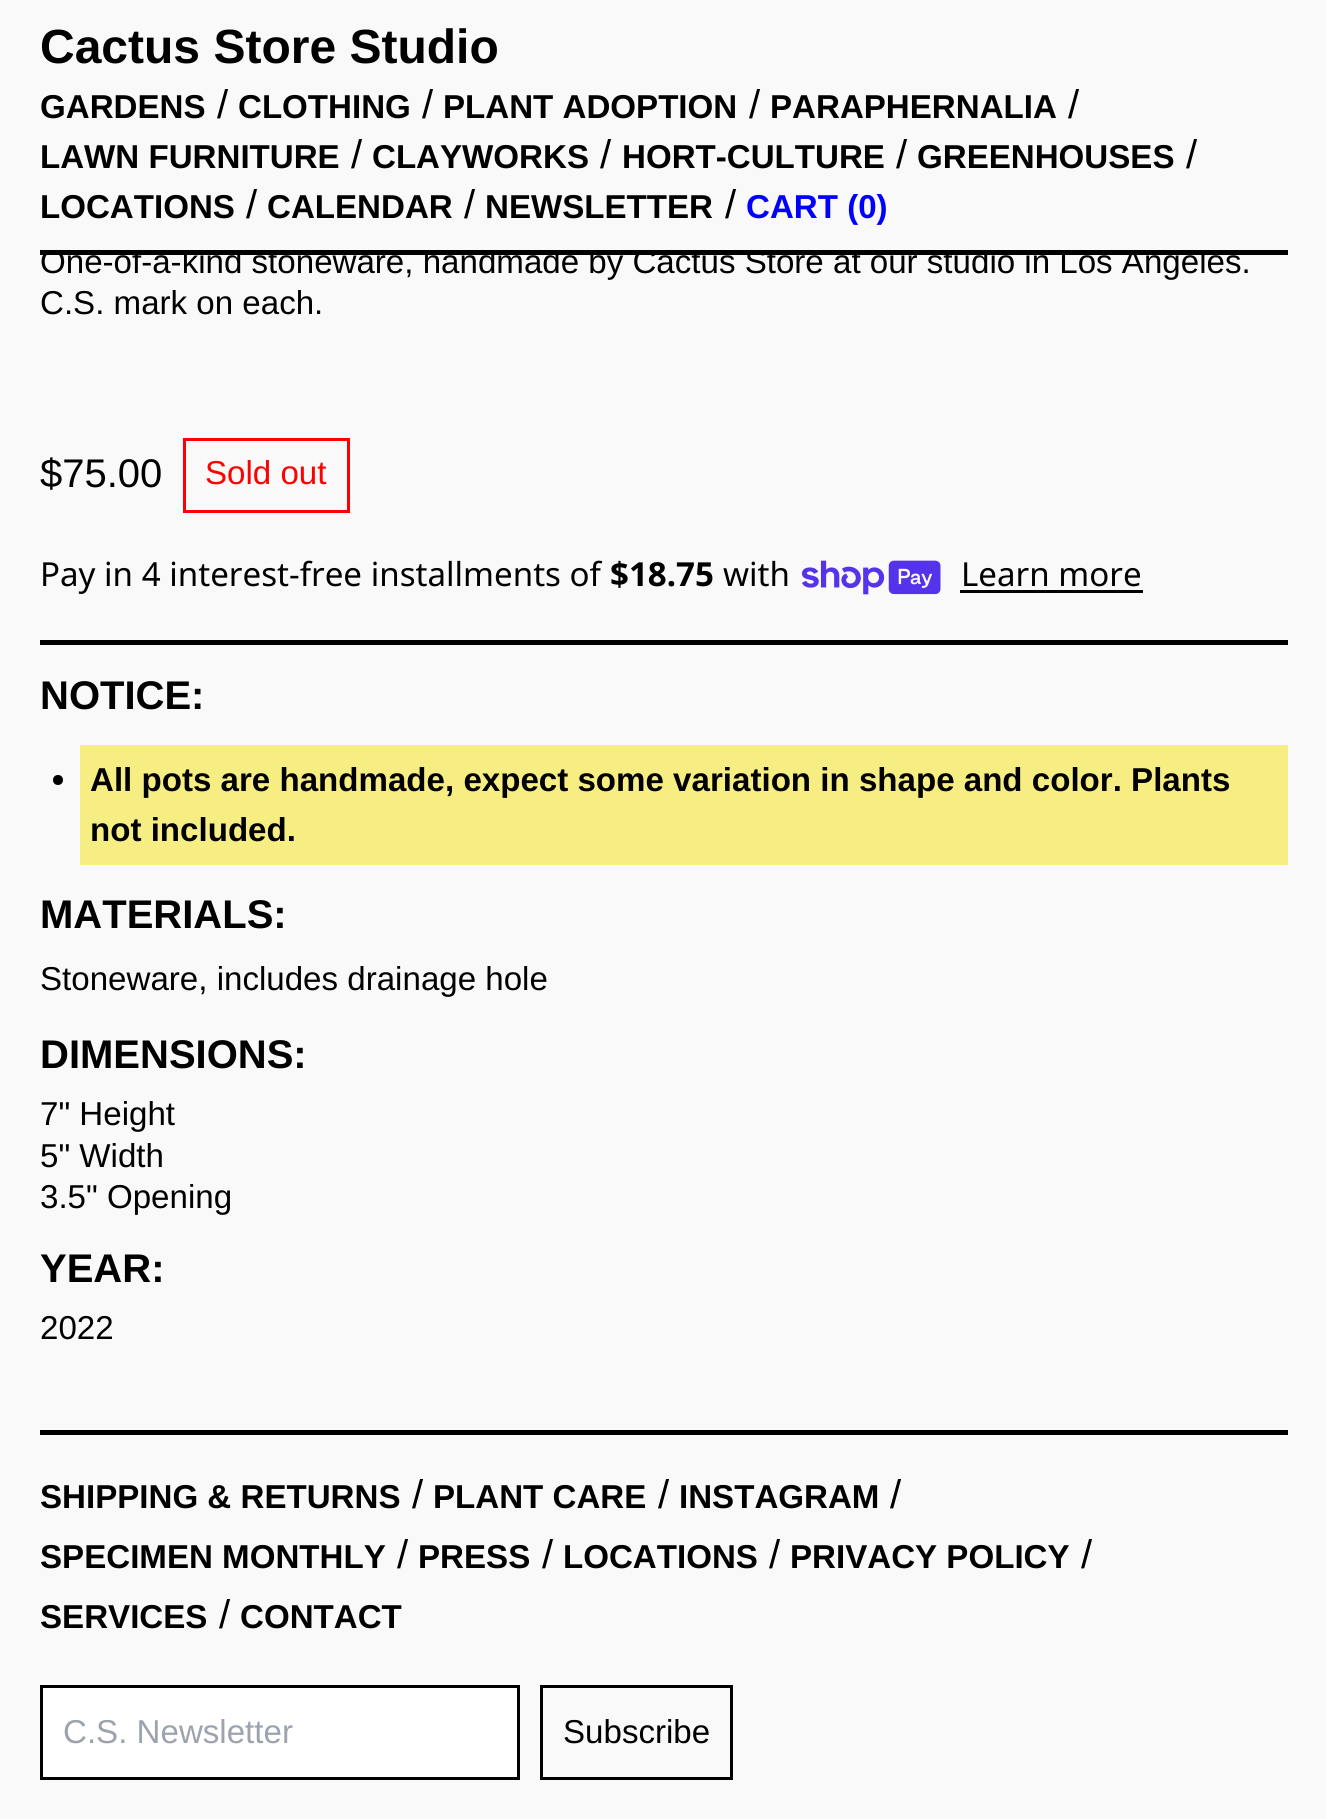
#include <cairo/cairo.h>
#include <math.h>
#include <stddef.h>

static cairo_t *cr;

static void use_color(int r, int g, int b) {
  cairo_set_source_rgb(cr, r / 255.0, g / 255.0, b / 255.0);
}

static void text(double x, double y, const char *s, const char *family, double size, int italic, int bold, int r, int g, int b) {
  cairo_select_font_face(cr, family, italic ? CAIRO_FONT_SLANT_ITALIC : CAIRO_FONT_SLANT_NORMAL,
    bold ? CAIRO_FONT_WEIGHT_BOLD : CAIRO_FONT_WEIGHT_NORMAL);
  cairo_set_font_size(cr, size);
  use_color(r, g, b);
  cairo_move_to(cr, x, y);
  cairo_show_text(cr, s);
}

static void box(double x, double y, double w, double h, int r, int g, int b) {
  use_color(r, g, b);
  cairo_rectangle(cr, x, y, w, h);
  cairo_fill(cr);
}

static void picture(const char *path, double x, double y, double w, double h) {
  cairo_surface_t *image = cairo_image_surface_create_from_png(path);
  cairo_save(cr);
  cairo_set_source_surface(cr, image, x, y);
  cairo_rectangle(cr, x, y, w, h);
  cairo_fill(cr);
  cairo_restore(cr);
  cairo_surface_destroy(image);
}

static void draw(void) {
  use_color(249, 249, 249);
  cairo_paint(cr);
  cairo_rectangle(cr, 184.5, 439.5, 164, 72);
  use_color(255, 0, 0);
  cairo_set_line_width(cr, 3);
  cairo_stroke(cr);
  picture("img_01.png", 801, 560, 140, 35);
  box(960, 590, 183, 3, 0, 0, 0);
  box(40, 640, 1248, 5, 0, 0, 0);
  box(80, 745, 1208, 120, 247, 238, 131);
  use_color(0, 0, 0);
  cairo_arc(cr, 58, 780, 5, 0, 2 * M_PI);
  cairo_fill(cr);
  box(40, 1430, 1248, 5, 0, 0, 0);
  use_color(255, 255, 255);
  cairo_rectangle(cr, 41.5, 1686.5, 477, 92);
  cairo_fill_preserve(cr);
  use_color(0, 0, 0);
  cairo_stroke(cr);
  cairo_rectangle(cr, 541.5, 1686.5, 190, 92);
  cairo_stroke(cr);
  text(40, 63, "Cactus Store Studio", "Liberation Sans", 48, 0, 1, 0, 0, 0);
  text(40, 118, "GARDENS", "Liberation Sans", 33.1, 0, 1, 0, 0, 0);
  text(217, 118, "/", "Liberation Sans", 40, 0, 0, 0, 0, 0);
  text(238, 118, "CLOTHING", "Liberation Sans", 33.1, 0, 1, 0, 0, 0);
  text(422, 118, "/", "Liberation Sans", 40, 0, 0, 0, 0, 0);
  text(443, 118, "PLANT ADOPTION", "Liberation Sans", 33.1, 0, 1, 0, 0, 0);
  text(749, 118, "/", "Liberation Sans", 40, 0, 0, 0, 0, 0);
  text(770, 118, "PARAPHERNALIA", "Liberation Sans", 33.1, 0, 1, 0, 0, 0);
  text(1068, 118, "/", "Liberation Sans", 40, 0, 0, 0, 0, 0);
  text(40, 168, "LAWN FURNITURE", "Liberation Sans", 33.1, 0, 1, 0, 0, 0);
  text(351, 168, "/", "Liberation Sans", 40, 0, 0, 0, 0, 0);
  text(372, 168, "CLAYWORKS", "Liberation Sans", 33.1, 0, 1, 0, 0, 0);
  text(600, 168, "/", "Liberation Sans", 40, 0, 0, 0, 0, 0);
  text(622, 168, "HORT-CULTURE", "Liberation Sans", 33.1, 0, 1, 0, 0, 0);
  text(896, 168, "/", "Liberation Sans", 40, 0, 0, 0, 0, 0);
  text(917, 168, "GREENHOUSES", "Liberation Sans", 33.1, 0, 1, 0, 0, 0);
  text(1186, 168, "/", "Liberation Sans", 40, 0, 0, 0, 0, 0);
  text(40, 218, "LOCATIONS", "Liberation Sans", 33.1, 0, 1, 0, 0, 0);
  text(246, 218, "/", "Liberation Sans", 40, 0, 0, 0, 0, 0);
  text(267, 218, "CALENDAR", "Liberation Sans", 33.1, 0, 1, 0, 0, 0);
  text(464, 218, "/", "Liberation Sans", 40, 0, 0, 0, 0, 0);
  text(485, 218, "NEWSLETTER", "Liberation Sans", 33.1, 0, 1, 0, 0, 0);
  text(725, 218, "/", "Liberation Sans", 40, 0, 0, 0, 0, 0);
  text(746, 218, "CART (0)", "Liberation Sans", 33.1, 0, 1, 0, 0, 255);
  text(40, 273, "One-of-a-kind stoneware, handmade by Cactus Store at our studio in Los Angeles.", "Liberation Sans", 33.1, 0, 0, 0, 0, 0);
  box(43, 249, 1163, 6, 249, 249, 249);
  box(40, 250, 1248, 5, 0, 0, 0);
  text(40, 314, "C.S. mark on each.", "Liberation Sans", 33.1, 0, 0, 0, 0, 0);
  text(40, 487, "$75.00", "Liberation Sans", 40, 0, 0, 0, 0, 0);
  text(205, 484, "Sold out", "Liberation Sans", 33.1, 0, 0, 255, 0, 0);
  text(40, 586, "Pay in 4 interest-free installments of", "Noto Sans", 33.1, 0, 0, 0, 0, 0);
  text(610, 586, "$18.75", "Noto Sans", 33.1, 0, 1, 0, 0, 0);
  text(723, 586, "with", "Noto Sans", 33.1, 0, 0, 0, 0, 0);
  text(961, 586, "Learn more", "Noto Sans", 33.1, 0, 0, 0, 0, 0);
  text(40, 709, "NOTICE:", "Liberation Sans", 40, 0, 1, 0, 0, 0);
  text(90, 791, "All pots are handmade, expect some variation in shape and color. Plants", "Liberation Sans", 33.1, 0, 1, 0, 0, 0);
  text(90, 841, "not included.", "Liberation Sans", 33.1, 0, 1, 0, 0, 0);
  text(40, 928, "MATERIALS:", "Liberation Sans", 40, 0, 1, 0, 0, 0);
  text(40, 990, "Stoneware, includes drainage hole", "Liberation Sans", 33.1, 0, 0, 0, 0, 0);
  text(40, 1068, "DIMENSIONS:", "Liberation Sans", 40, 0, 1, 0, 0, 0);
  text(40, 1125, "7\" Height", "Liberation Sans", 33.1, 0, 0, 0, 0, 0);
  text(40, 1167, "5\" Width", "Liberation Sans", 33.1, 0, 0, 0, 0, 0);
  text(40, 1208, "3.5\" Opening", "Liberation Sans", 33.1, 0, 0, 0, 0, 0);
  text(40, 1282, "YEAR:", "Liberation Sans", 40, 0, 1, 0, 0, 0);
  text(40, 1339, "2022", "Liberation Sans", 33.1, 0, 0, 0, 0, 0);
  text(40, 1508, "SHIPPING & RETURNS", "Liberation Sans", 33.1, 0, 1, 0, 0, 0);
  text(412, 1508, "/", "Liberation Sans", 40, 0, 0, 0, 0, 0);
  text(433, 1508, "PLANT CARE", "Liberation Sans", 33.1, 0, 1, 0, 0, 0);
  text(658, 1508, "/", "Liberation Sans", 40, 0, 0, 0, 0, 0);
  text(679, 1508, "INSTAGRAM", "Liberation Sans", 33.1, 0, 1, 0, 0, 0);
  text(890, 1508, "/", "Liberation Sans", 40, 0, 0, 0, 0, 0);
  text(40, 1568, "SPECIMEN MONTHLY", "Liberation Sans", 33.1, 0, 1, 0, 0, 0);
  text(397, 1568, "/", "Liberation Sans", 40, 0, 0, 0, 0, 0);
  text(418, 1568, "PRESS", "Liberation Sans", 33.1, 0, 1, 0, 0, 0);
  text(542, 1568, "/", "Liberation Sans", 40, 0, 0, 0, 0, 0);
  text(563, 1568, "LOCATIONS", "Liberation Sans", 33.1, 0, 1, 0, 0, 0);
  text(769, 1568, "/", "Liberation Sans", 40, 0, 0, 0, 0, 0);
  text(790, 1568, "PRIVACY POLICY", "Liberation Sans", 33.1, 0, 1, 0, 0, 0);
  text(1081, 1568, "/", "Liberation Sans", 40, 0, 0, 0, 0, 0);
  text(40, 1628, "SERVICES", "Liberation Sans", 33.1, 0, 1, 0, 0, 0);
  text(219, 1628, "/", "Liberation Sans", 40, 0, 0, 0, 0, 0);
  text(240, 1628, "CONTACT", "Liberation Sans", 33.1, 0, 1, 0, 0, 0);
  text(63, 1743, "C.S. Newsletter", "Liberation Sans", 33.1, 0, 0, 156, 163, 175);
  text(563, 1743, "Subscribe", "Liberation Sans", 33.1, 0, 0, 0, 0, 0);
}

int main(void) {
  cairo_surface_t *surface = cairo_image_surface_create(CAIRO_FORMAT_RGB24, 1326, 1819);
  cr = cairo_create(surface);
  cairo_font_options_t *options = cairo_font_options_create();
  cairo_font_options_set_hint_metrics(options, CAIRO_HINT_METRICS_OFF);
  cairo_font_options_set_hint_style(options, CAIRO_HINT_STYLE_NONE);
  cairo_set_font_options(cr, options);
  cairo_set_miter_limit(cr, 4);
  draw();
  cairo_surface_write_to_png(surface, "out.png");
  cairo_font_options_destroy(options);
  cairo_destroy(cr);
  cairo_surface_destroy(surface);
  return 0;
}
